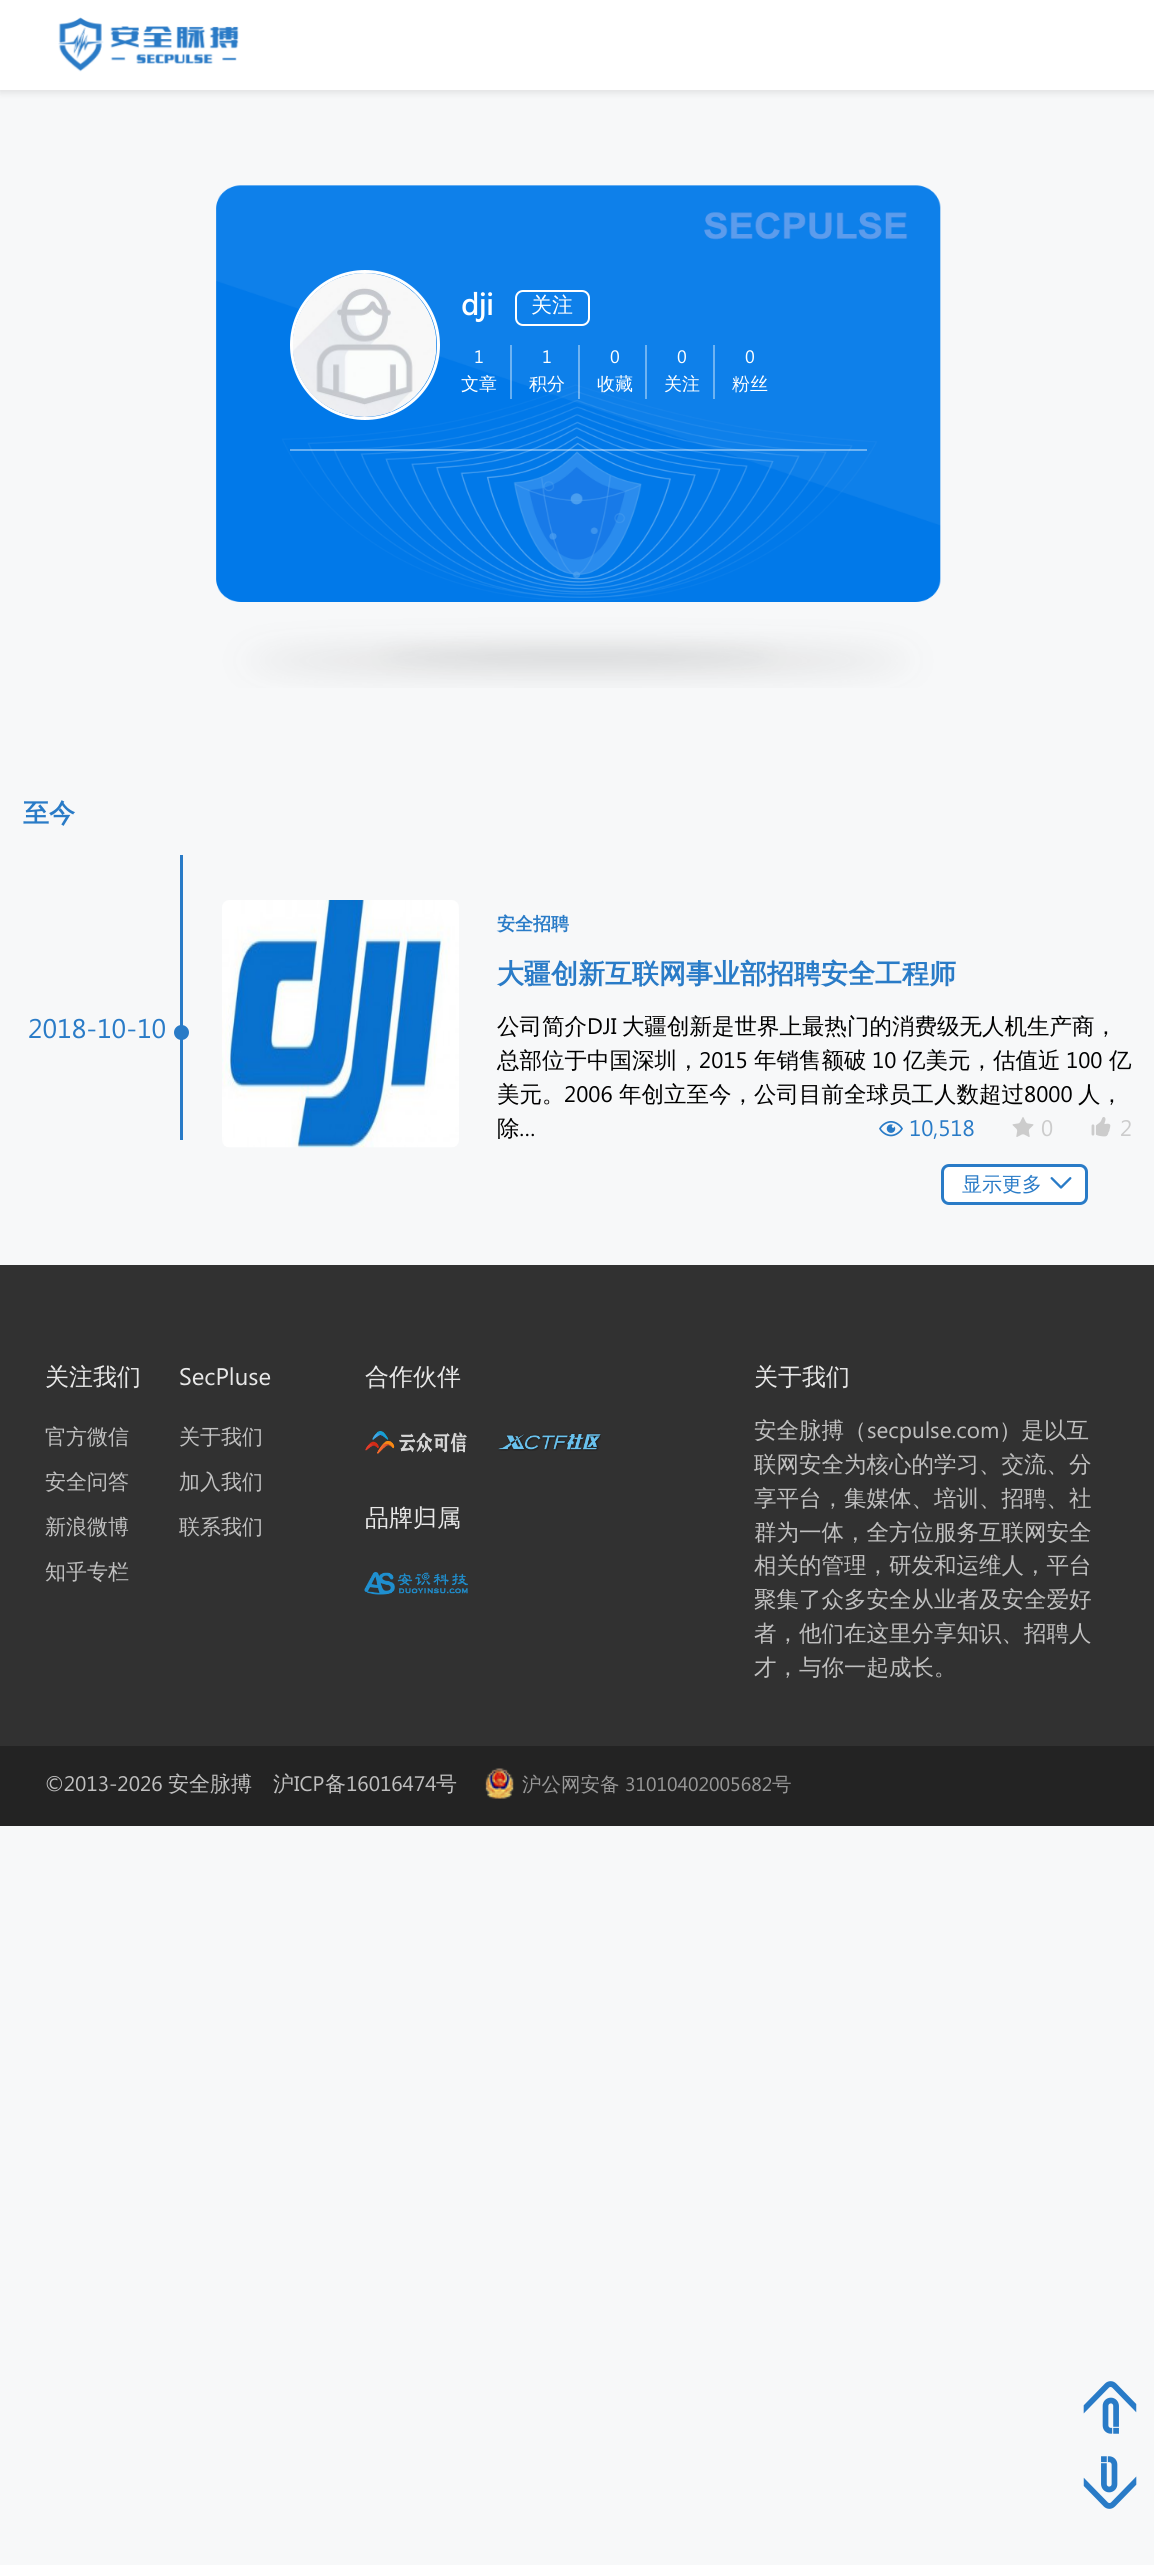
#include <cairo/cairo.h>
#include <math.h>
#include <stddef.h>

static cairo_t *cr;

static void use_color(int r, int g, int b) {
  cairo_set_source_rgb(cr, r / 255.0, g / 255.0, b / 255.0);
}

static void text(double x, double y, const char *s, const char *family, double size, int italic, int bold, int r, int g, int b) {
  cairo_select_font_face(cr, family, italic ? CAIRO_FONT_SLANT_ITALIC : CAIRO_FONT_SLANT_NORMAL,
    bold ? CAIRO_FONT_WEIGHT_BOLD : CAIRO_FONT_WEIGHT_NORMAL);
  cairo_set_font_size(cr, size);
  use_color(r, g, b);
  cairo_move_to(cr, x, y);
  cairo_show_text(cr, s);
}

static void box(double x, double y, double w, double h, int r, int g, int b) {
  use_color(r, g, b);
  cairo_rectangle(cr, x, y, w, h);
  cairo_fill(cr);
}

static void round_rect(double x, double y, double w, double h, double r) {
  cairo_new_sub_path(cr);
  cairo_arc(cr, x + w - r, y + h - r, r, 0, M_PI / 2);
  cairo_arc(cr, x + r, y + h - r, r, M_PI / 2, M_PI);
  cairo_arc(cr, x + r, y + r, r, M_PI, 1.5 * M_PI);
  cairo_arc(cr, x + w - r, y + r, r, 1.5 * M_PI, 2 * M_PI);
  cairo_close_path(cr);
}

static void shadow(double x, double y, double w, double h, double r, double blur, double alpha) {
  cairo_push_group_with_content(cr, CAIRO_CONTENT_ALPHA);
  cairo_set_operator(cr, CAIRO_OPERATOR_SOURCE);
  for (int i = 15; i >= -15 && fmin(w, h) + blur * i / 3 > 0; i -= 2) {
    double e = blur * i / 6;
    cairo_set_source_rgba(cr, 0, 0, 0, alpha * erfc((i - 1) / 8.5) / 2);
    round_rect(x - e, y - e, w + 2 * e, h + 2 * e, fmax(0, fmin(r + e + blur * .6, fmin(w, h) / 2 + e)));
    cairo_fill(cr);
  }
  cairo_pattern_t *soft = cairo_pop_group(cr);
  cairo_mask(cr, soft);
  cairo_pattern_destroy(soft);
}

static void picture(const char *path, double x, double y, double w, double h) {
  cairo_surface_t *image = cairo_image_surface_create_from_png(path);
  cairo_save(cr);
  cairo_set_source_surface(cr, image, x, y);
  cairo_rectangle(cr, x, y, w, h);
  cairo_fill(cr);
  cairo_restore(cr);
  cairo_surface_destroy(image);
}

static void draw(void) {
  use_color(247, 248, 249);
  cairo_paint(cr);
  use_color(0, 0, 0);
  shadow(0, 2, 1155, 90, 0, 4, 0.11);
  box(0, 0, 1154, 90, 255, 255, 255);
  picture("img_01.png", 58, 17, 181, 55);
  picture("img_02.png", 216, 185, 725, 503);
  cairo_set_source_rgba(cr, 1, 1, 1, 0.4);
  cairo_rectangle(cr, 290, 449, 577, 2);
  cairo_fill(cr);
  cairo_arc(cr, 365, 345, 73.5, 0, 2 * M_PI);
  use_color(255, 255, 255);
  cairo_set_line_width(cr, 3);
  cairo_stroke(cr);
  picture("img_03.png", 293, 273, 144, 144);
  round_rect(516, 291, 73, 34, 7);
  cairo_set_line_width(cr, 2);
  cairo_stroke(cr);
  cairo_set_source_rgba(cr, 1, 1, 1, 0.4);
  cairo_rectangle(cr, 510, 345, 2, 54);
  cairo_fill(cr);
  cairo_rectangle(cr, 578, 345, 2, 54);
  cairo_fill(cr);
  box(645, 345, 2, 54, 110, 179, 242);
  box(713, 345, 2, 54, 110, 179, 242);
  box(180, 855, 3, 285, 41, 123, 199);
  cairo_arc(cr, 181.5, 1032.5, 7.5, 0, 2 * M_PI);
  cairo_fill(cr);
  picture("img_04.png", 222, 900, 237, 248);
  picture("img_05.png", 879, 1121, 24, 16);
  picture("img_06.png", 1012, 1117, 22, 20);
  picture("img_07.png", 1091, 1117, 20, 20);
  use_color(255, 255, 255);
  round_rect(942.5, 1165.5, 144, 38, 6.5);
  cairo_fill_preserve(cr);
  use_color(41, 123, 199);
  cairo_set_line_width(cr, 3);
  cairo_stroke(cr);
  picture("img_08.png", 1050, 1177, 22, 12);
  box(0, 1265, 1154, 481, 49, 49, 49);
  picture("img_09.png", 365, 1431, 102, 23);
  picture("img_10.png", 498, 1433, 103, 18);
  picture("img_11.png", 364, 1572, 104, 23);
  box(0, 1746, 1154, 80, 35, 35, 35);
  picture("img_12.png", 485, 1768, 29, 31);
  picture("img_13.png", 1083, 2381, 54, 53);
  picture("img_14.png", 1083, 2456, 54, 53);
  text(461, 315, "dji", "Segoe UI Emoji", 30, 0, 1, 255, 255, 255);
  text(531, 312, "关注", "WenQuanYi Zen Hei Medium", 21, 0, 0, 255, 255, 255);
  text(474, 363, "1", "Segoe UI Emoji", 18, 0, 0, 255, 255, 255);
  text(461, 390, "文章", "WenQuanYi Zen Hei Medium", 18, 0, 0, 255, 255, 255);
  text(542, 363, "1", "Segoe UI Emoji", 18, 0, 0, 255, 255, 255);
  text(529, 390, "积分", "WenQuanYi Zen Hei Medium", 18, 0, 0, 255, 255, 255);
  text(610, 363, "0", "Segoe UI Emoji", 18, 0, 0, 255, 255, 255);
  text(597, 390, "收藏", "WenQuanYi Zen Hei Medium", 18, 0, 0, 255, 255, 255);
  text(677, 363, "0", "Segoe UI Emoji", 18, 0, 0, 255, 255, 255);
  text(664, 390, "关注", "WenQuanYi Zen Hei Medium", 18, 0, 0, 255, 255, 255);
  text(745, 363, "0", "Segoe UI Emoji", 18, 0, 0, 255, 255, 255);
  text(732, 390, "粉丝", "WenQuanYi Zen Hei Medium", 18, 0, 0, 255, 255, 255);
  text(23, 822, "至今", "WenQuanYi Zen Hei", 26, 0, 1, 41, 123, 199);
  text(28, 1038, "2018-10-10", "Segoe UI Emoji", 27, 0, 0, 41, 123, 199);
  text(497, 930, "安全招聘", "WenQuanYi Zen Hei", 18, 0, 1, 41, 123, 199);
  text(497, 983, "大疆创新互联网事业部招聘安全工程师", "WenQuanYi Zen Hei", 27, 0, 1, 41, 123, 199);
  text(497, 1034, "公司简介", "WenQuanYi Zen Hei Medium", 22.5, 0, 0, 0, 0, 0);
  text(587, 1034, "DJI", "Segoe UI Emoji", 22.5, 0, 0, 0, 0, 0);
  text(622, 1034, "大疆创新是世界上最热门的消费级无人机生产商，", "WenQuanYi Zen Hei Medium", 22.5, 0, 0, 0, 0, 0);
  text(497, 1068, "总部位于中国深圳，", "WenQuanYi Zen Hei Medium", 22.5, 0, 0, 0, 0, 0);
  text(699, 1068, "2015", "Segoe UI Emoji", 22.5, 0, 0, 0, 0, 0);
  text(754, 1068, "年销售额破", "WenQuanYi Zen Hei Medium", 22.5, 0, 0, 0, 0, 0);
  text(872, 1068, "10", "Segoe UI Emoji", 22.5, 0, 0, 0, 0, 0);
  text(903, 1068, "亿美元，估值近", "WenQuanYi Zen Hei Medium", 22.5, 0, 0, 0, 0, 0);
  text(1066, 1068, "100", "Segoe UI Emoji", 22.5, 0, 0, 0, 0, 0);
  text(1109, 1068, "亿", "WenQuanYi Zen Hei Medium", 22.5, 0, 0, 0, 0, 0);
  text(497, 1102, "美元。", "WenQuanYi Zen Hei Medium", 22.5, 0, 0, 0, 0, 0);
  text(564, 1102, "2006", "Segoe UI Emoji", 22.5, 0, 0, 0, 0, 0);
  text(619, 1102, "年创立至今，公司目前全球员工人数超过", "WenQuanYi Zen Hei Medium", 22.5, 0, 0, 0, 0, 0);
  text(1024, 1102, "8000", "Segoe UI Emoji", 22.5, 0, 0, 0, 0, 0);
  text(1078, 1102, "人，", "WenQuanYi Zen Hei Medium", 22.5, 0, 0, 0, 0, 0);
  text(497, 1136, "除", "WenQuanYi Zen Hei Medium", 22.5, 0, 0, 0, 0, 0);
  text(519, 1136, "…", "Segoe UI Emoji", 22.5, 0, 0, 0, 0, 0);
  text(909, 1136, "10,518", "Segoe UI Emoji", 22.5, 0, 0, 41, 123, 199);
  text(1041, 1136, "0", "Segoe UI Emoji", 22.5, 0, 0, 204, 204, 204);
  text(1120, 1136, "2", "Segoe UI Emoji", 22.5, 0, 0, 204, 204, 204);
  text(962, 1191, "显示更多", "WenQuanYi Zen Hei Medium", 20, 0, 0, 41, 123, 199);
  text(45, 1385, "关注我们", "WenQuanYi Zen Hei Medium", 24, 0, 0, 232, 232, 232);
  text(45, 1444, "官方微信", "WenQuanYi Zen Hei Medium", 21, 0, 0, 192, 192, 192);
  text(45, 1489, "安全问答", "WenQuanYi Zen Hei Medium", 21, 0, 0, 192, 192, 192);
  text(45, 1534, "新浪微博", "WenQuanYi Zen Hei Medium", 21, 0, 0, 192, 192, 192);
  text(45, 1579, "知乎专栏", "WenQuanYi Zen Hei Medium", 21, 0, 0, 192, 192, 192);
  text(179, 1385, "SecPluse", "Segoe UI Emoji", 24, 0, 0, 232, 232, 232);
  text(179, 1444, "关于我们", "WenQuanYi Zen Hei Medium", 21, 0, 0, 192, 192, 192);
  text(179, 1489, "加入我们", "WenQuanYi Zen Hei Medium", 21, 0, 0, 192, 192, 192);
  text(179, 1534, "联系我们", "WenQuanYi Zen Hei Medium", 21, 0, 0, 192, 192, 192);
  text(365, 1385, "合作伙伴", "WenQuanYi Zen Hei Medium", 24, 0, 0, 232, 232, 232);
  text(365, 1526, "品牌归属", "WenQuanYi Zen Hei Medium", 24, 0, 0, 232, 232, 232);
  text(754, 1385, "关于我们", "WenQuanYi Zen Hei Medium", 24, 0, 0, 232, 232, 232);
  text(754, 1438, "安全脉搏（", "WenQuanYi Zen Hei Medium", 22.5, 0, 0, 192, 192, 192);
  text(867, 1438, "secpulse.com", "Segoe UI Emoji", 22.5, 0, 0, 192, 192, 192);
  text(999, 1438, "）是以互", "WenQuanYi Zen Hei Medium", 22.5, 0, 0, 192, 192, 192);
  text(754, 1472, "联网安全为核心的学习、交流、分", "WenQuanYi Zen Hei Medium", 22.5, 0, 0, 192, 192, 192);
  text(754, 1506, "享平台，集媒体、培训、招聘、社", "WenQuanYi Zen Hei Medium", 22.5, 0, 0, 192, 192, 192);
  text(754, 1540, "群为一体，全方位服务互联网安全", "WenQuanYi Zen Hei Medium", 22.5, 0, 0, 192, 192, 192);
  text(754, 1573, "相关的管理，研发和运维人，平台", "WenQuanYi Zen Hei Medium", 22.5, 0, 0, 192, 192, 192);
  text(754, 1607, "聚集了众多安全从业者及安全爱好", "WenQuanYi Zen Hei Medium", 22.5, 0, 0, 192, 192, 192);
  text(754, 1641, "者，他们在这里分享知识、招聘人", "WenQuanYi Zen Hei Medium", 22.5, 0, 0, 192, 192, 192);
  text(754, 1675, "才，与你一起成长。", "WenQuanYi Zen Hei Medium", 22.5, 0, 0, 192, 192, 192);
  text(45, 1791, "©2013-2026", "Segoe UI Emoji", 21, 0, 0, 192, 192, 192);
  text(168, 1791, "安全脉搏", "WenQuanYi Zen Hei Medium", 21, 0, 0, 192, 192, 192);
  text(273, 1791, "沪", "WenQuanYi Zen Hei Medium", 21, 0, 0, 192, 192, 192);
  text(294, 1791, "ICP", "Segoe UI Emoji", 21, 0, 0, 192, 192, 192);
  text(325, 1791, "备", "WenQuanYi Zen Hei Medium", 21, 0, 0, 192, 192, 192);
  text(346, 1791, "16016474", "Segoe UI Emoji", 21, 0, 0, 192, 192, 192);
  text(436, 1791, "号", "WenQuanYi Zen Hei Medium", 21, 0, 0, 192, 192, 192);
  text(522, 1791, "沪公网安备", "WenQuanYi Zen Hei Medium", 19.5, 0, 0, 152, 152, 152);
  text(625, 1791, "31010402005682", "Segoe UI Emoji", 19.5, 0, 0, 152, 152, 152);
  text(772, 1791, "号", "WenQuanYi Zen Hei Medium", 19.5, 0, 0, 152, 152, 152);
}

int main(void) {
  cairo_surface_t *surface = cairo_image_surface_create(CAIRO_FORMAT_RGB24, 1154, 2565);
  cr = cairo_create(surface);
  cairo_font_options_t *options = cairo_font_options_create();
  cairo_font_options_set_hint_metrics(options, CAIRO_HINT_METRICS_OFF);
  cairo_font_options_set_hint_style(options, CAIRO_HINT_STYLE_NONE);
  cairo_set_font_options(cr, options);
  cairo_set_miter_limit(cr, 4);
  draw();
  cairo_surface_write_to_png(surface, "out.png");
  cairo_font_options_destroy(options);
  cairo_destroy(cr);
  cairo_surface_destroy(surface);
  return 0;
}
